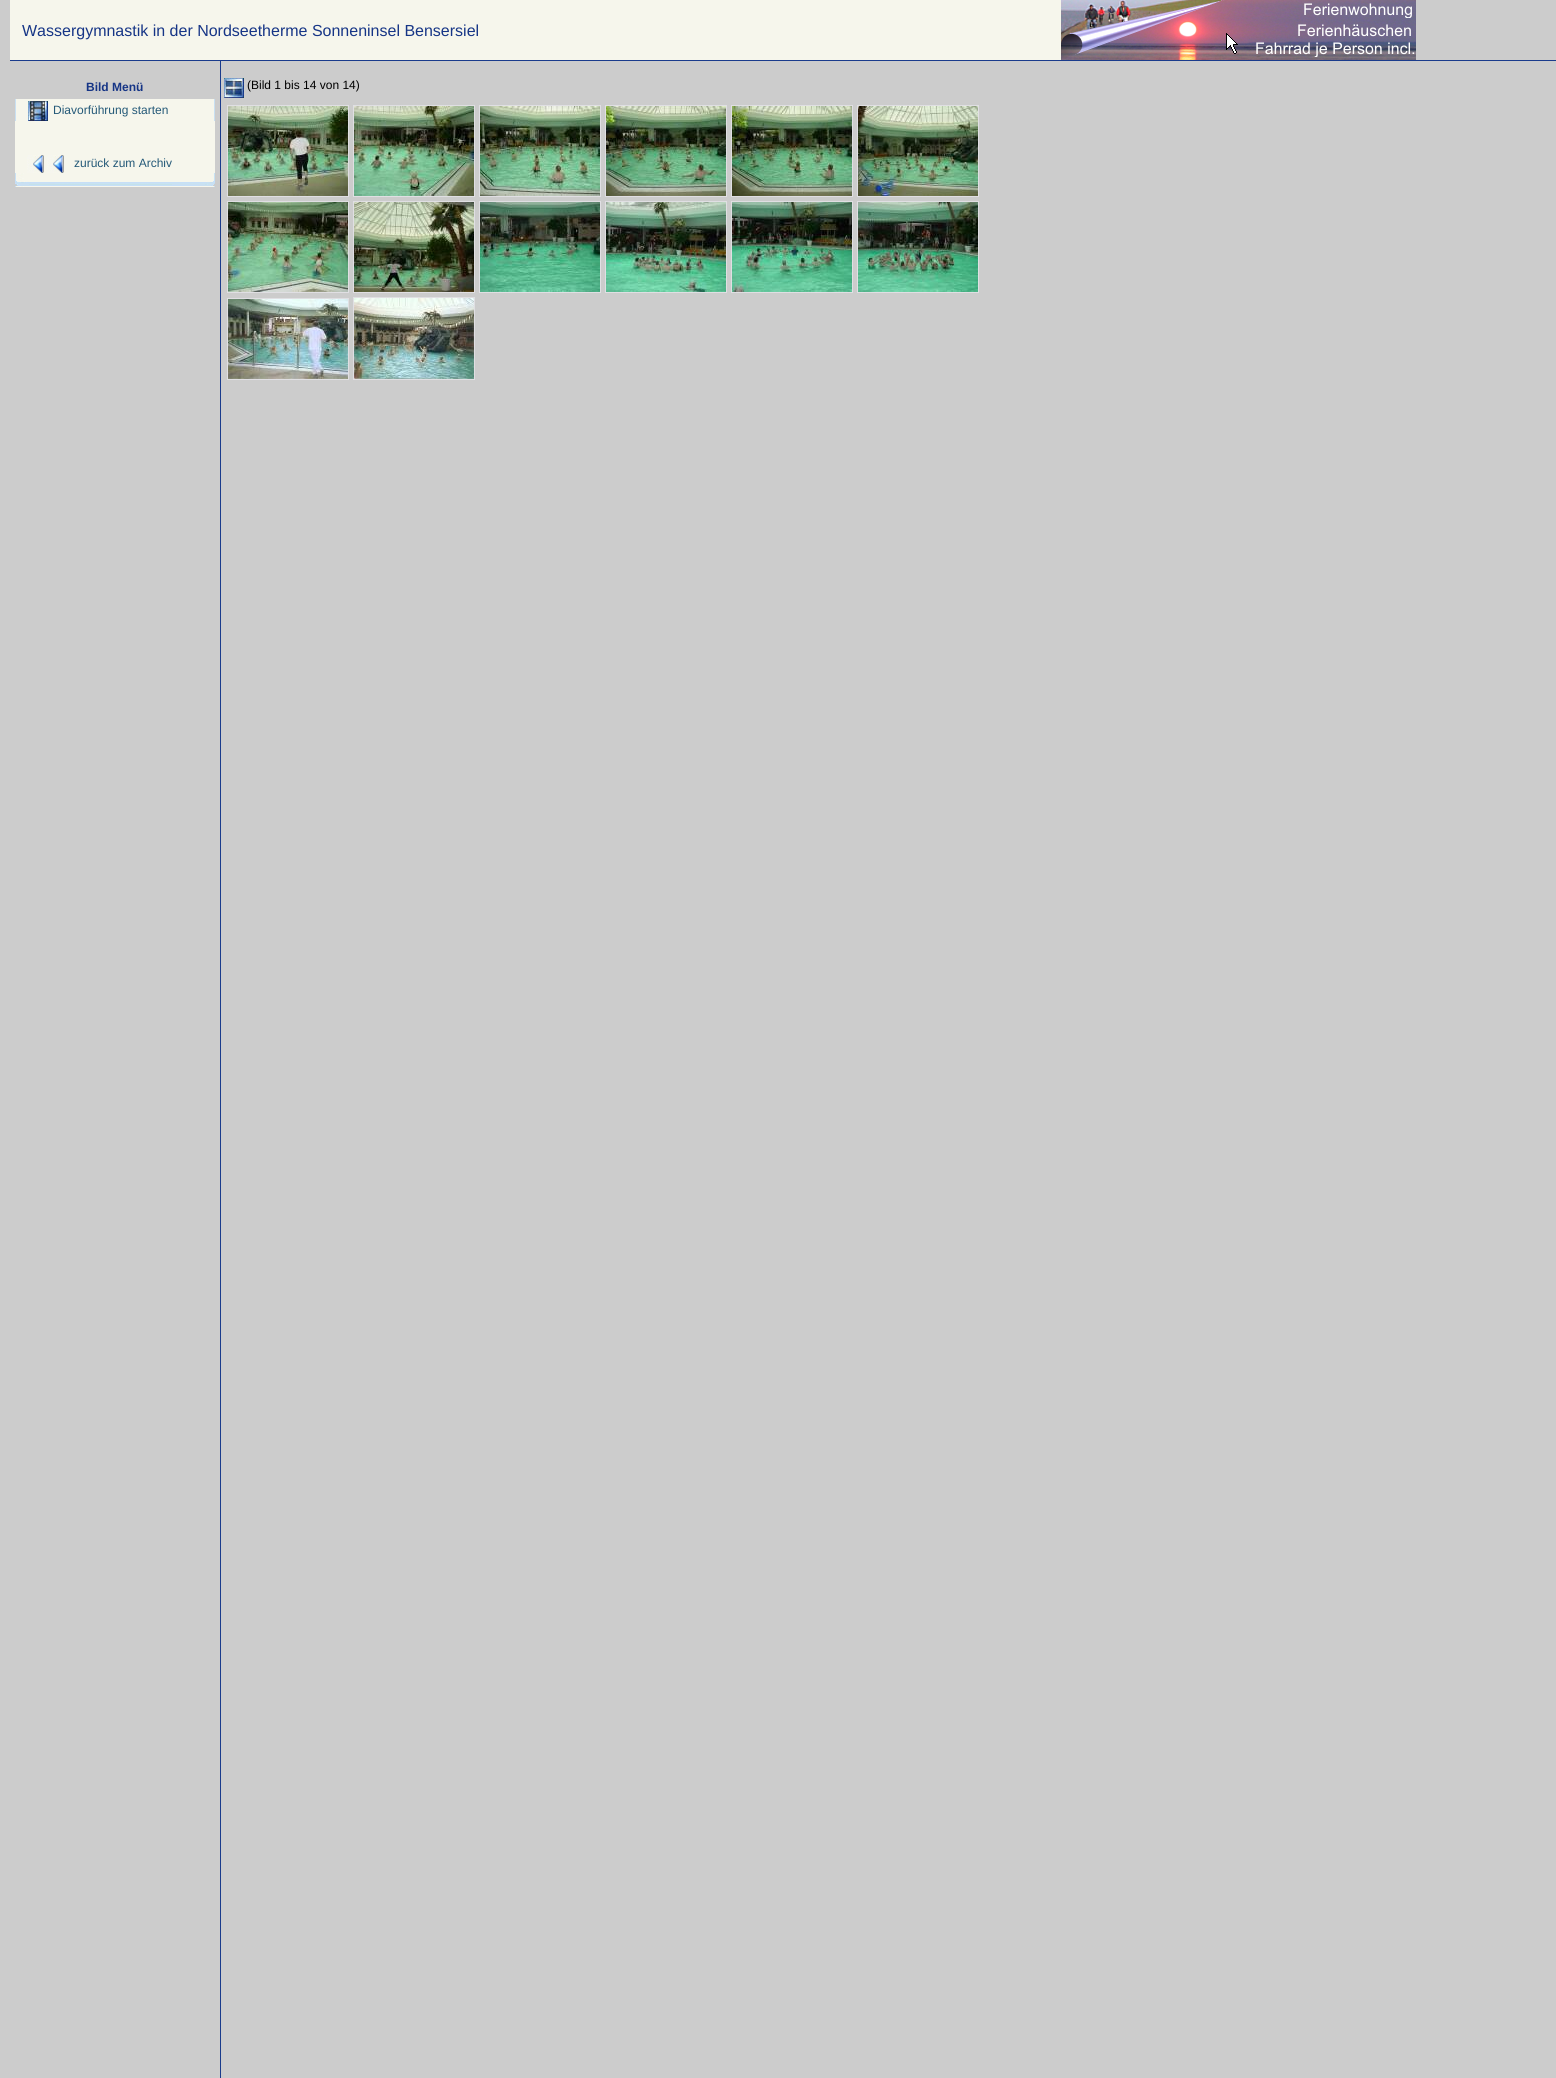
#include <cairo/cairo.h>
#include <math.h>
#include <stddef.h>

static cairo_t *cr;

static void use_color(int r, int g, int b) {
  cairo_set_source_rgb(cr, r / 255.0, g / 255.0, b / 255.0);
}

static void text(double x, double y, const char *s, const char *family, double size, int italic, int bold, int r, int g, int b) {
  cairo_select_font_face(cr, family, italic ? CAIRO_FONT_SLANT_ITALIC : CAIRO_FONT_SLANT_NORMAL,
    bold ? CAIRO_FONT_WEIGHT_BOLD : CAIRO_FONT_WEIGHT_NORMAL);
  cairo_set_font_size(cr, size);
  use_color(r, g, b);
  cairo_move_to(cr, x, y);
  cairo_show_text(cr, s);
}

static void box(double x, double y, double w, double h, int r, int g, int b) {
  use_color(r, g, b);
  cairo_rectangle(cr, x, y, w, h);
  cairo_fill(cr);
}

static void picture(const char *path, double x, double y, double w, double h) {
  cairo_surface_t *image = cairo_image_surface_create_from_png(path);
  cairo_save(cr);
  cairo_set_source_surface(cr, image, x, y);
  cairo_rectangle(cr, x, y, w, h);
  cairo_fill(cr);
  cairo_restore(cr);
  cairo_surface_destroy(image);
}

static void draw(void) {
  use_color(204, 204, 204);
  cairo_paint(cr);
  box(10, 0, 1051, 60, 246, 246, 236);
  picture("img_01.png", 1061, 0, 355, 60);
  box(10, 60, 1546, 1, 26, 59, 140);
  box(15, 99, 1, 22, 201, 224, 242);
  box(16, 99, 198, 22, 246, 246, 236);
  picture("img_02.png", 28, 101, 20, 20);
  box(214, 99, 1, 22, 201, 224, 242);
  box(15, 121, 200, 52, 246, 246, 236);
  picture("img_03.png", 27, 155, 17, 18);
  picture("img_03.png", 47, 155, 17, 18);
  picture("img_04.png", 15, 173, 200, 14);
  box(220, 61, 1, 2017, 26, 59, 140);
  picture("img_05.png", 224, 78, 20, 20);
  cairo_rectangle(cr, 227.5, 105.5, 121, 91);
  use_color(224, 223, 227);
  cairo_set_line_width(cr, 1);
  cairo_stroke(cr);
  picture("img_06.png", 228, 106, 120, 90);
  cairo_rectangle(cr, 353.5, 105.5, 121, 91);
  cairo_stroke(cr);
  picture("img_07.png", 354, 106, 120, 90);
  cairo_rectangle(cr, 479.5, 105.5, 121, 91);
  cairo_stroke(cr);
  picture("img_08.png", 480, 106, 120, 90);
  cairo_rectangle(cr, 605.5, 105.5, 121, 91);
  cairo_stroke(cr);
  picture("img_09.png", 606, 106, 120, 90);
  cairo_rectangle(cr, 731.5, 105.5, 121, 91);
  cairo_stroke(cr);
  picture("img_10.png", 732, 106, 120, 90);
  cairo_rectangle(cr, 857.5, 105.5, 121, 91);
  cairo_stroke(cr);
  picture("img_11.png", 858, 106, 120, 90);
  cairo_rectangle(cr, 227.5, 201.5, 121, 91);
  cairo_stroke(cr);
  picture("img_12.png", 228, 202, 120, 90);
  cairo_rectangle(cr, 353.5, 201.5, 121, 91);
  cairo_stroke(cr);
  picture("img_13.png", 354, 202, 120, 90);
  cairo_rectangle(cr, 479.5, 201.5, 121, 91);
  cairo_stroke(cr);
  picture("img_14.png", 480, 202, 120, 90);
  cairo_rectangle(cr, 605.5, 201.5, 121, 91);
  cairo_stroke(cr);
  picture("img_15.png", 606, 202, 120, 90);
  cairo_rectangle(cr, 731.5, 201.5, 121, 91);
  cairo_stroke(cr);
  picture("img_16.png", 732, 202, 120, 90);
  cairo_rectangle(cr, 857.5, 201.5, 121, 91);
  cairo_stroke(cr);
  picture("img_17.png", 858, 202, 120, 90);
  cairo_rectangle(cr, 227.5, 298.5, 121, 81);
  cairo_stroke(cr);
  picture("img_18.png", 228, 299, 120, 80);
  cairo_rectangle(cr, 353.5, 297.5, 121, 82);
  cairo_stroke(cr);
  picture("img_19.png", 354, 298, 120, 81);
  text(22, 36, "Wassergymnastik in der Nordseetherme Sonneninsel Bensersiel", "Liberation Sans", 16, 0, 0, 22, 53, 134);
  text(86, 91, "Bild Menü", "Liberation Sans", 12, 0, 1, 22, 53, 134);
  text(53, 114, "Diavorführung starten", "Liberation Sans", 12, 0, 0, 36, 89, 120);
  text(74, 167, "zurück zum Archiv", "Liberation Sans", 12, 0, 0, 36, 89, 120);
  text(247, 89, "(Bild 1 bis 14 von 14)", "Liberation Sans", 12, 0, 0, 0, 0, 0);
}

int main(void) {
  cairo_surface_t *surface = cairo_image_surface_create(CAIRO_FORMAT_RGB24, 1556, 2078);
  cr = cairo_create(surface);
  cairo_font_options_t *options = cairo_font_options_create();
  cairo_font_options_set_hint_metrics(options, CAIRO_HINT_METRICS_OFF);
  cairo_font_options_set_hint_style(options, CAIRO_HINT_STYLE_NONE);
  cairo_set_font_options(cr, options);
  cairo_set_miter_limit(cr, 4);
  draw();
  cairo_surface_write_to_png(surface, "out.png");
  cairo_font_options_destroy(options);
  cairo_destroy(cr);
  cairo_surface_destroy(surface);
  return 0;
}
